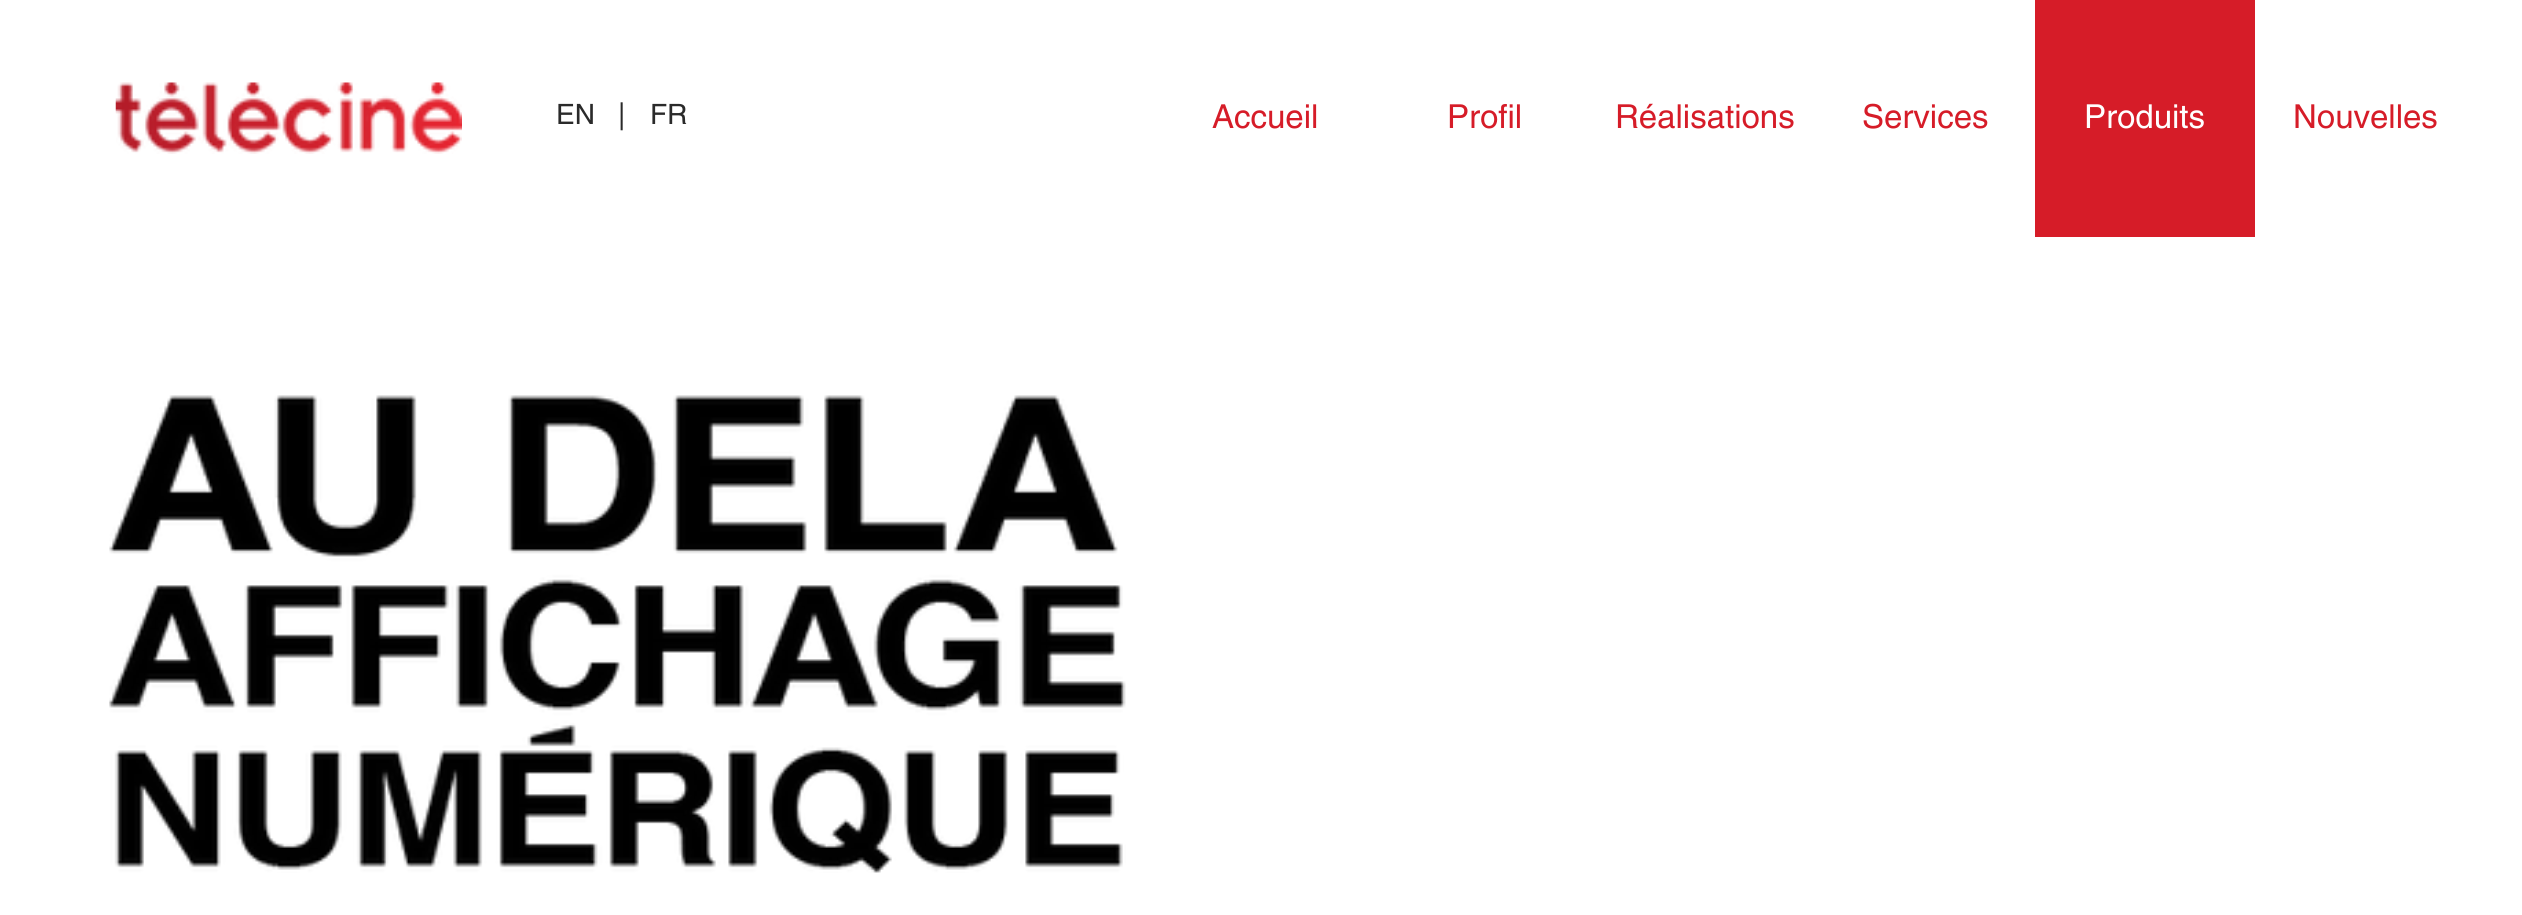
#include <cairo/cairo.h>
#include <math.h>
#include <stddef.h>

static cairo_t *cr;

static void use_color(int r, int g, int b) {
  cairo_set_source_rgb(cr, r / 255.0, g / 255.0, b / 255.0);
}

static void text(double x, double y, const char *s, const char *family, double size, int italic, int bold, int r, int g, int b) {
  cairo_select_font_face(cr, family, italic ? CAIRO_FONT_SLANT_ITALIC : CAIRO_FONT_SLANT_NORMAL,
    bold ? CAIRO_FONT_WEIGHT_BOLD : CAIRO_FONT_WEIGHT_NORMAL);
  cairo_set_font_size(cr, size);
  use_color(r, g, b);
  cairo_move_to(cr, x, y);
  cairo_show_text(cr, s);
}

static void box(double x, double y, double w, double h, int r, int g, int b) {
  use_color(r, g, b);
  cairo_rectangle(cr, x, y, w, h);
  cairo_fill(cr);
}

static void picture(const char *path, double x, double y, double w, double h) {
  cairo_surface_t *image = cairo_image_surface_create_from_png(path);
  cairo_save(cr);
  cairo_set_source_surface(cr, image, x, y);
  cairo_rectangle(cr, x, y, w, h);
  cairo_fill(cr);
  cairo_restore(cr);
  cairo_surface_destroy(image);
}

static void draw(void) {
  use_color(255, 255, 255);
  cairo_paint(cr);
  picture("img_01.png", 115, 82, 347, 72);
  box(2035, 0, 220, 237, 214, 28, 40);
  picture("img_02.png", 109, 395, 1017, 478);
  text(556, 124, "EN", "helvetica", 28, 0, 0, 42, 42, 42);
  text(618, 124, "|", "helvetica", 28, 0, 0, 42, 42, 42);
  text(650, 124, "FR", "helvetica", 28, 0, 0, 42, 42, 42);
  text(1212, 128, "Accueil", "helvetica", 33, 0, 0, 214, 28, 40);
  text(1447, 128, "Profil", "helvetica", 33, 0, 0, 214, 28, 40);
  text(1615, 128, "Réalisations", "helvetica", 33, 0, 0, 214, 28, 40);
  text(1862, 128, "Services", "helvetica", 33, 0, 0, 214, 28, 40);
  text(2084, 128, "Produits", "helvetica", 33, 0, 0, 255, 255, 255);
  text(2293, 128, "Nouvelles", "helvetica", 33, 0, 0, 214, 28, 40);
}

int main(void) {
  cairo_surface_t *surface = cairo_image_surface_create(CAIRO_FORMAT_RGB24, 2522, 915);
  cr = cairo_create(surface);
  cairo_font_options_t *options = cairo_font_options_create();
  cairo_font_options_set_hint_metrics(options, CAIRO_HINT_METRICS_OFF);
  cairo_font_options_set_hint_style(options, CAIRO_HINT_STYLE_NONE);
  cairo_set_font_options(cr, options);
  cairo_set_miter_limit(cr, 4);
  draw();
  cairo_surface_write_to_png(surface, "out.png");
  cairo_font_options_destroy(options);
  cairo_destroy(cr);
  cairo_surface_destroy(surface);
  return 0;
}
